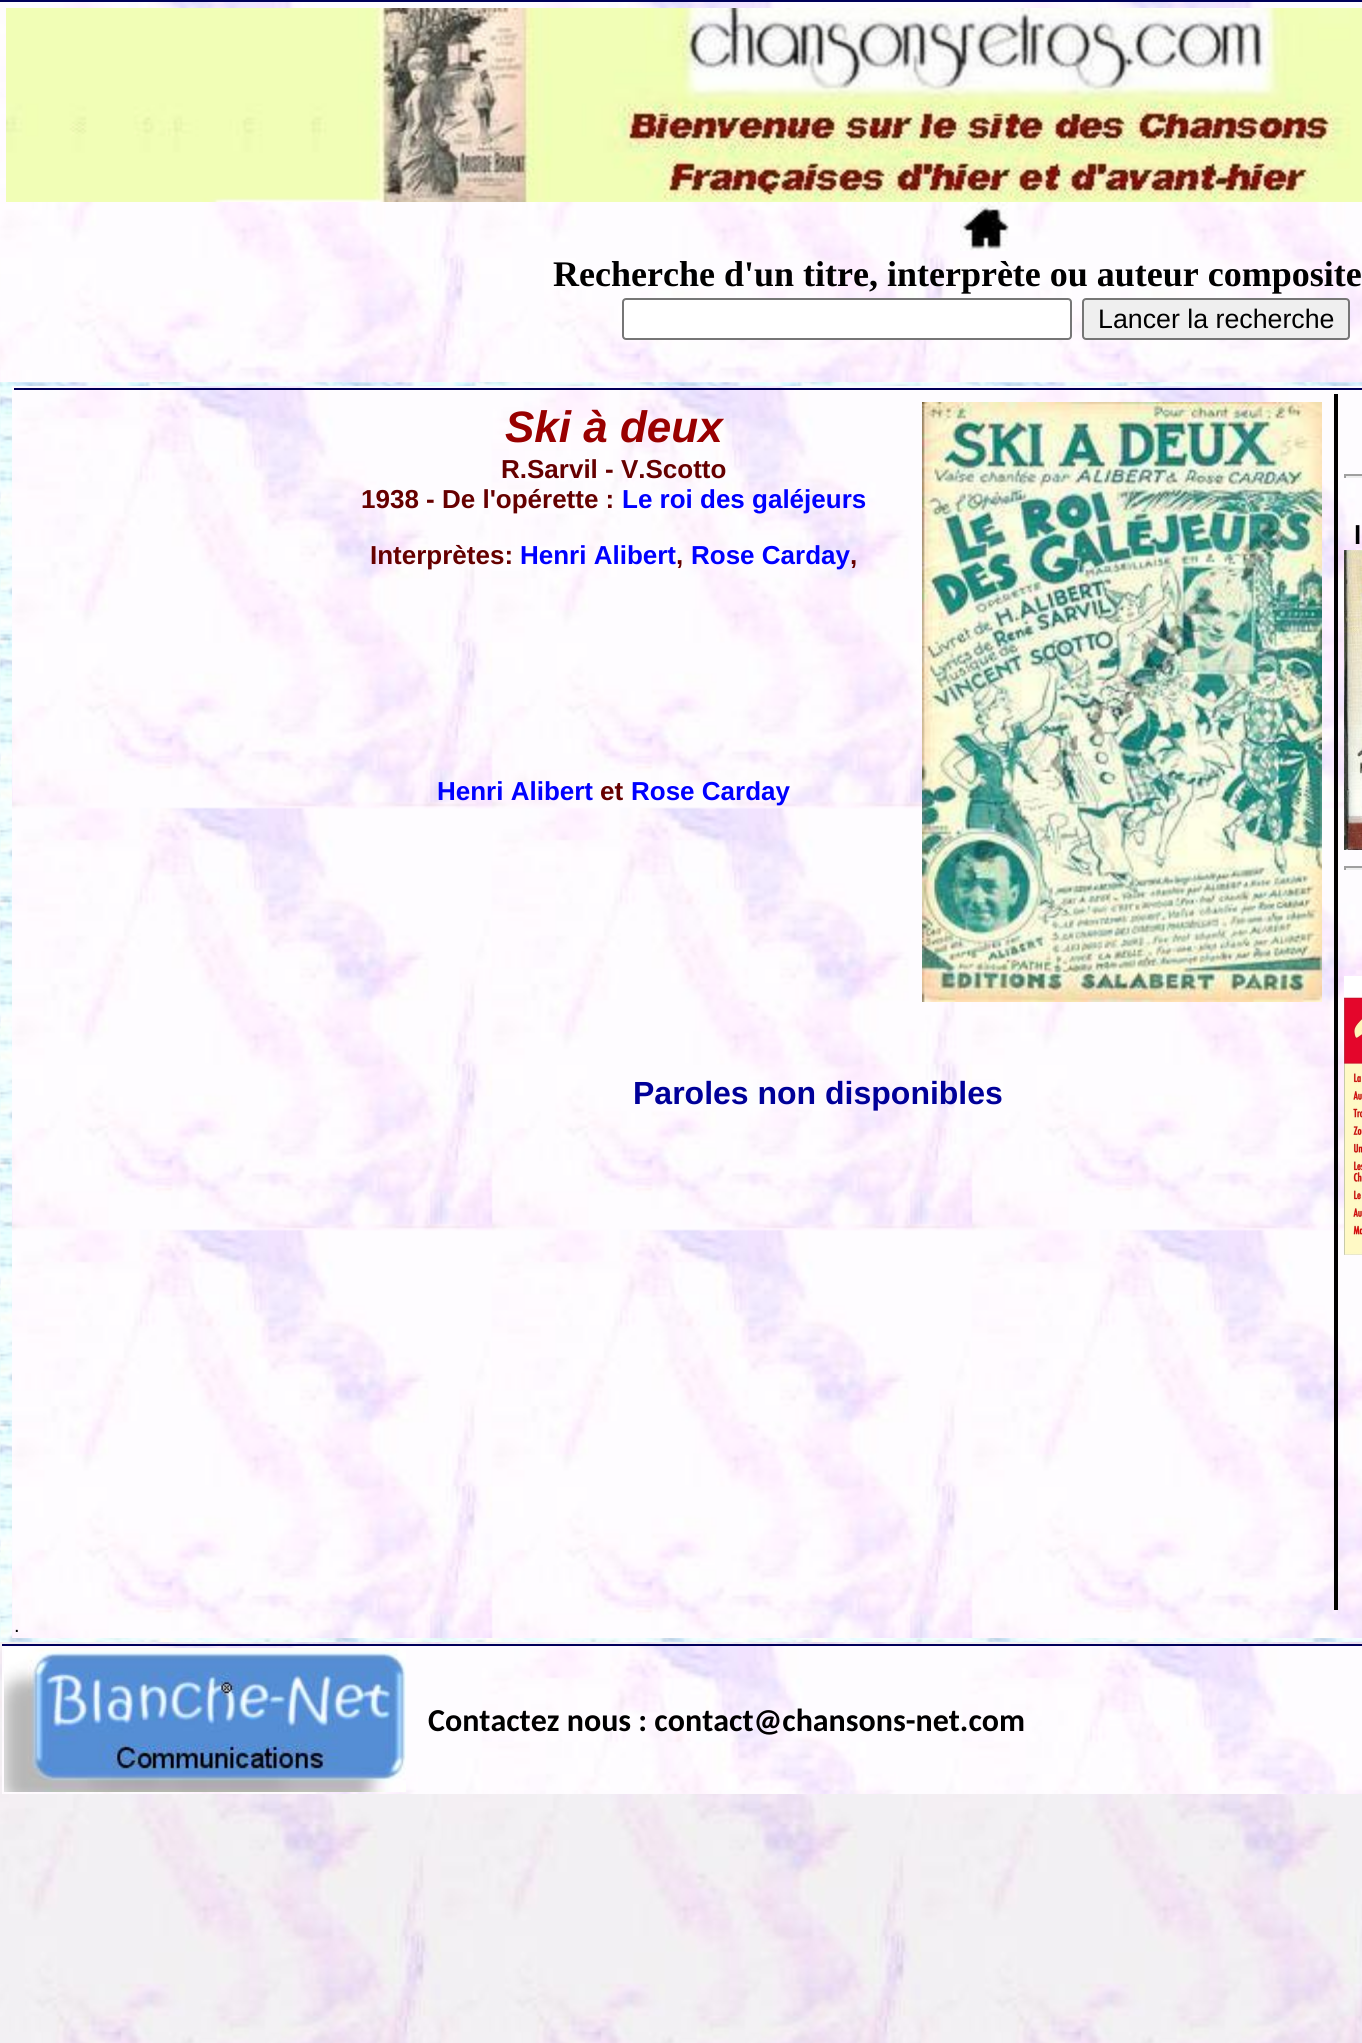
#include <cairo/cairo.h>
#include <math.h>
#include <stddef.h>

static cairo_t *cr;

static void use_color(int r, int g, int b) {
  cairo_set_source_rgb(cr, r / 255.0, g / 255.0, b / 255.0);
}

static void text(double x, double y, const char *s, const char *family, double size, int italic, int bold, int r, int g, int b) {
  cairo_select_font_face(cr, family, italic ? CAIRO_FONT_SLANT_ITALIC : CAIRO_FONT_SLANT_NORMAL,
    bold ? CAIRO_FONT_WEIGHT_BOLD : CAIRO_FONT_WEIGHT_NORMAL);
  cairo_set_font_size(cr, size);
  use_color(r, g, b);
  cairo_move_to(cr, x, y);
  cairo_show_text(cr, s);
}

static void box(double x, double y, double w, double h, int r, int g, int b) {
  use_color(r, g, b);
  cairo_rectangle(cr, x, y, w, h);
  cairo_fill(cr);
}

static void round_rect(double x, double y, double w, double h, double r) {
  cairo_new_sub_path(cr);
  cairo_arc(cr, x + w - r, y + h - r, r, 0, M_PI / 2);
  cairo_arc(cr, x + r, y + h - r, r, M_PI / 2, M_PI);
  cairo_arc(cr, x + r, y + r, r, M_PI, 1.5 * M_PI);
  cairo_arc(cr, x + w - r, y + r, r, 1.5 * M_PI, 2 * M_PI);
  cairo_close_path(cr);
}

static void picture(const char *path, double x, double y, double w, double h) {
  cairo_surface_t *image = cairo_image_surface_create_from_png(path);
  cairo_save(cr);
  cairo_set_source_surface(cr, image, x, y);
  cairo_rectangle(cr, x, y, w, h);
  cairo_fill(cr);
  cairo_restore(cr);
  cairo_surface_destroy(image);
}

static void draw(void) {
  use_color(255, 255, 255);
  cairo_paint(cr);
  picture("img_01.png", 0, 1642, 1362, 401);
  box(0, 0, 1362, 2, 0, 0, 90);
  picture("img_02.png", 0, 2, 1362, 380);
  picture("img_03.png", 6, 8, 1356, 194);
  picture("img_04.png", 960, 202, 49, 49);
  use_color(255, 255, 255);
  round_rect(623, 299, 448, 40, 3);
  cairo_fill_preserve(cr);
  use_color(118, 118, 118);
  cairo_stroke(cr);
  use_color(239, 239, 239);
  round_rect(1083, 299, 266, 40, 3);
  cairo_fill_preserve(cr);
  use_color(118, 118, 118);
  cairo_stroke(cr);
  picture("img_05.png", 0, 382, 1362, 1260);
  picture("img_06.png", 12, 386, 1350, 1252);
  box(14, 388, 1348, 2, 0, 0, 90);
  picture("img_07.png", 922, 402, 400, 600);
  box(1334, 394, 4, 1216, 0, 0, 0);
  box(1344, 474, 18, 2, 159, 159, 159);
  box(1344, 476, 18, 2, 238, 238, 238);
  box(1344, 474, 2, 4, 159, 159, 159);
  picture("img_08.png", 1344, 550, 18, 300);
  box(1344, 866, 18, 2, 159, 159, 159);
  box(1344, 868, 18, 2, 238, 238, 238);
  box(1344, 866, 2, 4, 159, 159, 159);
  picture("img_09.png", 1344, 976, 18, 279);
  box(2, 1644, 1360, 2, 0, 0, 90);
  picture("img_10.png", 2, 1646, 1360, 148);
  picture("img_11.png", 4, 1648, 402, 144);
  text(553, 286, "Recherche d'un titre, interprète ou auteur composite", "Liberation Serif", 36, 0, 1, 0, 0, 0);
  text(1098, 328, "Lancer la recherche", "Liberation Sans", 26.75, 0, 0, 0, 0, 0);
  text(505, 442, "Ski à deux", "Liberation Sans", 44, 1, 1, 153, 0, 0);
  text(501, 478, "R.Sarvil - V.Scotto", "Liberation Sans", 26, 0, 1, 102, 0, 0);
  text(361, 508, "1938 - De l'opérette :", "Liberation Sans", 26, 0, 1, 102, 0, 0);
  text(622, 508, "Le roi des galéjeurs", "Liberation Sans", 26, 0, 1, 0, 0, 255);
  text(370, 564, "Interprètes:", "Liberation Sans", 26, 0, 1, 102, 0, 0);
  text(520, 564, "Henri Alibert", "Liberation Sans", 26, 0, 1, 0, 0, 255);
  text(676, 564, ",", "Liberation Sans", 26, 0, 1, 102, 0, 0);
  text(691, 564, "Rose Carday", "Liberation Sans", 26, 0, 1, 0, 0, 255);
  text(850, 564, ",", "Liberation Sans", 26, 0, 1, 102, 0, 0);
  text(437, 800, "Henri Alibert", "Liberation Sans", 26, 0, 1, 0, 0, 255);
  text(600, 800, "et", "Liberation Sans", 26, 0, 1, 102, 0, 0);
  text(631, 800, "Rose Carday", "Liberation Sans", 26, 0, 1, 0, 0, 255);
  text(633, 1104, "Paroles non disponibles", "Liberation Sans", 32, 0, 1, 0, 0, 153);
  text(1354, 544, "l", "Liberation Sans", 26, 0, 1, 0, 0, 0);
  text(14, 1632, ".", "Liberation Sans", 20, 0, 0, 0, 0, 0);
  text(428, 1731, "Contactez nous : contact@chansons-net.com", "Carlito", 32, 0, 1, 0, 0, 0);
}

int main(void) {
  cairo_surface_t *surface = cairo_image_surface_create(CAIRO_FORMAT_RGB24, 1362, 2043);
  cr = cairo_create(surface);
  cairo_font_options_t *options = cairo_font_options_create();
  cairo_font_options_set_hint_metrics(options, CAIRO_HINT_METRICS_OFF);
  cairo_font_options_set_hint_style(options, CAIRO_HINT_STYLE_NONE);
  cairo_set_font_options(cr, options);
  cairo_set_miter_limit(cr, 4);
  draw();
  cairo_surface_write_to_png(surface, "out.png");
  cairo_font_options_destroy(options);
  cairo_destroy(cr);
  cairo_surface_destroy(surface);
  return 0;
}
